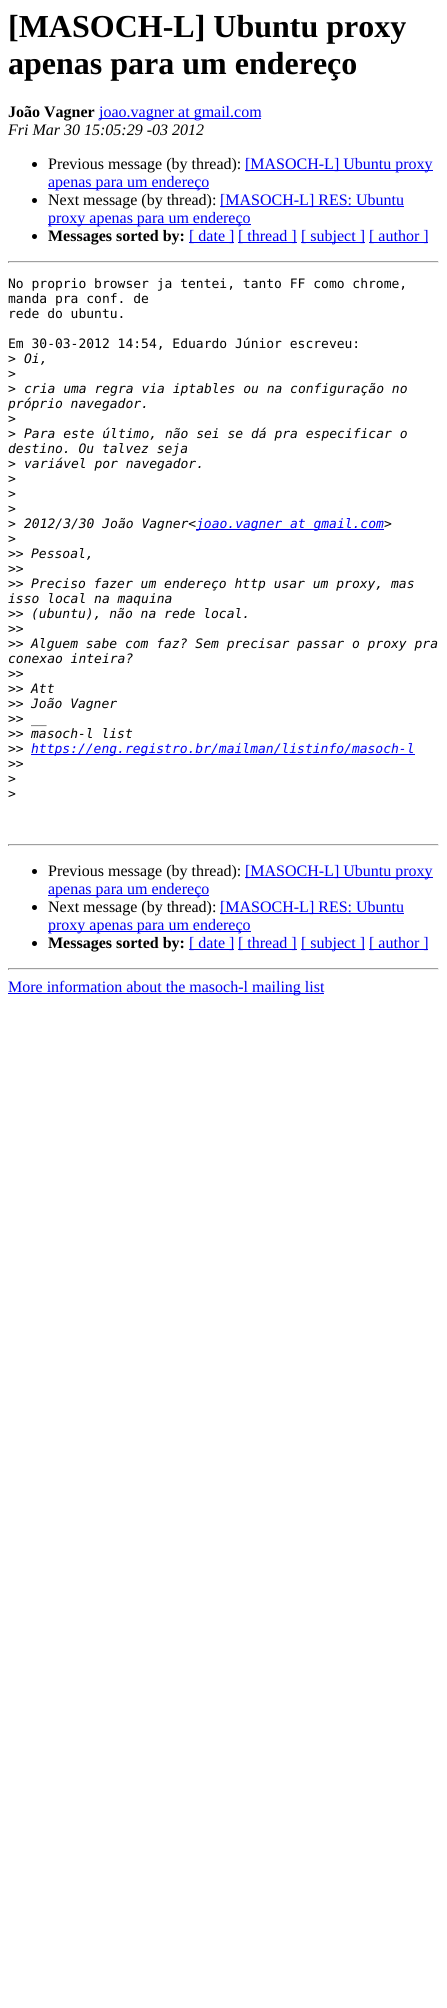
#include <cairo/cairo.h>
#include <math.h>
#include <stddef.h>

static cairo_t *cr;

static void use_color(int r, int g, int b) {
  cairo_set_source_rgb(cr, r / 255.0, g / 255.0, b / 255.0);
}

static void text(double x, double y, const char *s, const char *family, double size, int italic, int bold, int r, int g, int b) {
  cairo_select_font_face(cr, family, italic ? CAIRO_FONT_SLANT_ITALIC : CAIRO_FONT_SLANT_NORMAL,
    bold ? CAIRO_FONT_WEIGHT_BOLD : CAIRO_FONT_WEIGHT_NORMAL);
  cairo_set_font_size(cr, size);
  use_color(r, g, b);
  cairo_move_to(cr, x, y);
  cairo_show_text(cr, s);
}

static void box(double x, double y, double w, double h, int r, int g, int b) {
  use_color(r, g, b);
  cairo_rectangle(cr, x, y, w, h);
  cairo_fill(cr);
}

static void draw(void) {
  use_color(255, 255, 255);
  cairo_paint(cr);
  box(99, 118, 162, 1, 0, 0, 238);
  use_color(0, 0, 0);
  cairo_arc(cr, 34.5, 164.5, 2.5, 0, 2 * M_PI);
  cairo_fill(cr);
  box(245, 170, 188, 1, 0, 0, 238);
  box(48, 188, 161, 1, 0, 0, 238);
  use_color(0, 0, 0);
  cairo_arc(cr, 34.5, 200.5, 2.5, 0, 2 * M_PI);
  cairo_fill(cr);
  box(220, 206, 184, 1, 0, 0, 238);
  box(48, 224, 203, 1, 0, 0, 238);
  use_color(0, 0, 0);
  cairo_arc(cr, 34.5, 236.5, 2.5, 0, 2 * M_PI);
  cairo_fill(cr);
  box(189, 242, 45, 1, 0, 0, 238);
  box(238, 242, 59, 1, 0, 0, 238);
  box(301, 242, 64, 1, 0, 0, 238);
  box(369, 242, 59, 1, 0, 0, 238);
  box(8, 261, 431, 1, 159, 159, 159);
  box(438, 261, 1, 2, 238, 238, 238);
  box(8, 262, 431, 1, 238, 238, 238);
  box(8, 261, 1, 2, 159, 159, 159);
  box(196, 529, 188, 1, 0, 0, 238);
  box(31, 754, 384, 1, 0, 0, 238);
  box(8, 844, 431, 1, 159, 159, 159);
  box(438, 844, 1, 2, 238, 238, 238);
  box(8, 845, 431, 1, 238, 238, 238);
  box(8, 844, 1, 2, 159, 159, 159);
  use_color(0, 0, 0);
  cairo_arc(cr, 34.5, 871.5, 2.5, 0, 2 * M_PI);
  cairo_fill(cr);
  box(245, 877, 188, 1, 0, 0, 238);
  box(48, 895, 161, 1, 0, 0, 238);
  use_color(0, 0, 0);
  cairo_arc(cr, 34.5, 907.5, 2.5, 0, 2 * M_PI);
  cairo_fill(cr);
  box(220, 913, 184, 1, 0, 0, 238);
  box(48, 931, 203, 1, 0, 0, 238);
  use_color(0, 0, 0);
  cairo_arc(cr, 34.5, 943.5, 2.5, 0, 2 * M_PI);
  cairo_fill(cr);
  box(189, 949, 45, 1, 0, 0, 238);
  box(238, 949, 59, 1, 0, 0, 238);
  box(301, 949, 64, 1, 0, 0, 238);
  box(369, 949, 59, 1, 0, 0, 238);
  box(8, 968, 431, 1, 159, 159, 159);
  box(438, 968, 1, 2, 238, 238, 238);
  box(8, 969, 431, 1, 238, 238, 238);
  box(8, 968, 1, 2, 159, 159, 159);
  box(8, 993, 316, 1, 0, 0, 238);
  text(8, 37, "[MASOCH-L] Ubuntu proxy", "Liberation Serif", 32, 0, 1, 0, 0, 0);
  text(8, 74, "apenas para um endereço", "Liberation Serif", 32, 0, 1, 0, 0, 0);
  text(8, 117, "João Vagner", "Liberation Serif", 16, 0, 1, 0, 0, 0);
  text(99, 117, "joao.vagner at gmail.com", "Liberation Serif", 16, 0, 0, 0, 0, 238);
  text(8, 135, "Fri Mar 30 15:05:29 -03 2012", "Liberation Serif", 16, 1, 0, 0, 0, 0);
  text(48, 169, "Previous message (by thread):", "Liberation Serif", 16, 0, 0, 0, 0, 0);
  text(245, 169, "[MASOCH-L] Ubuntu proxy", "Liberation Serif", 16, 0, 0, 0, 0, 238);
  text(48, 187, "apenas para um endereço", "Liberation Serif", 16, 0, 0, 0, 0, 238);
  text(48, 205, "Next message (by thread):", "Liberation Serif", 16, 0, 0, 0, 0, 0);
  text(220, 205, "[MASOCH-L] RES: Ubuntu", "Liberation Serif", 16, 0, 0, 0, 0, 238);
  text(48, 223, "proxy apenas para um endereço", "Liberation Serif", 16, 0, 0, 0, 0, 238);
  text(48, 241, "Messages sorted by:", "Liberation Serif", 16, 0, 1, 0, 0, 0);
  text(189, 241, "[ date ]", "Liberation Serif", 16, 0, 0, 0, 0, 238);
  text(238, 241, "[ thread ]", "Liberation Serif", 16, 0, 0, 0, 0, 238);
  text(301, 241, "[ subject ]", "Liberation Serif", 16, 0, 0, 0, 0, 238);
  text(369, 241, "[ author ]", "Liberation Serif", 16, 0, 0, 0, 0, 238);
  text(8, 288, "No proprio browser ja tentei, tanto FF como chrome,", "DejaVu Sans Mono", 13, 0, 0, 0, 0, 0);
  text(8, 303, "manda pra conf. de", "DejaVu Sans Mono", 13, 0, 0, 0, 0, 0);
  text(8, 318, "rede do ubuntu.", "DejaVu Sans Mono", 13, 0, 0, 0, 0, 0);
  text(8, 348, "Em 30-03-2012 14:54, Eduardo Júnior escreveu:", "DejaVu Sans Mono", 13, 0, 0, 0, 0, 0);
  text(8, 363, ">", "DejaVu Sans Mono", 13, 0, 0, 0, 0, 0);
  text(24, 363, "Oi,", "DejaVu Sans Mono", 13, 1, 0, 0, 0, 0);
  text(8, 378, ">", "DejaVu Sans Mono", 13, 0, 0, 0, 0, 0);
  text(8, 393, ">", "DejaVu Sans Mono", 13, 0, 0, 0, 0, 0);
  text(24, 393, "cria uma regra via iptables ou na configuração no", "DejaVu Sans Mono", 13, 1, 0, 0, 0, 0);
  text(8, 408, "próprio navegador.", "DejaVu Sans Mono", 13, 1, 0, 0, 0, 0);
  text(8, 423, ">", "DejaVu Sans Mono", 13, 0, 0, 0, 0, 0);
  text(8, 438, ">", "DejaVu Sans Mono", 13, 0, 0, 0, 0, 0);
  text(24, 438, "Para este último, não sei se dá pra especificar o", "DejaVu Sans Mono", 13, 1, 0, 0, 0, 0);
  text(8, 453, "destino. Ou talvez seja", "DejaVu Sans Mono", 13, 1, 0, 0, 0, 0);
  text(8, 468, ">", "DejaVu Sans Mono", 13, 0, 0, 0, 0, 0);
  text(24, 468, "variável por navegador.", "DejaVu Sans Mono", 13, 1, 0, 0, 0, 0);
  text(8, 483, ">", "DejaVu Sans Mono", 13, 0, 0, 0, 0, 0);
  text(8, 498, ">", "DejaVu Sans Mono", 13, 0, 0, 0, 0, 0);
  text(8, 513, ">", "DejaVu Sans Mono", 13, 0, 0, 0, 0, 0);
  text(8, 528, ">", "DejaVu Sans Mono", 13, 0, 0, 0, 0, 0);
  text(24, 528, "2012/3/30 João Vagner<", "DejaVu Sans Mono", 13, 1, 0, 0, 0, 0);
  text(196, 528, "joao.vagner at gmail.com", "DejaVu Sans Mono", 13, 1, 0, 0, 0, 238);
  text(384, 528, ">", "DejaVu Sans Mono", 13, 1, 0, 0, 0, 0);
  text(8, 543, ">", "DejaVu Sans Mono", 13, 0, 0, 0, 0, 0);
  text(8, 558, ">>", "DejaVu Sans Mono", 13, 0, 0, 0, 0, 0);
  text(31, 558, "Pessoal,", "DejaVu Sans Mono", 13, 1, 0, 0, 0, 0);
  text(8, 573, ">>", "DejaVu Sans Mono", 13, 0, 0, 0, 0, 0);
  text(8, 588, ">>", "DejaVu Sans Mono", 13, 0, 0, 0, 0, 0);
  text(31, 588, "Preciso fazer um endereço http usar um proxy, mas", "DejaVu Sans Mono", 13, 1, 0, 0, 0, 0);
  text(8, 603, "isso local na maquina", "DejaVu Sans Mono", 13, 1, 0, 0, 0, 0);
  text(8, 618, ">>", "DejaVu Sans Mono", 13, 0, 0, 0, 0, 0);
  text(31, 618, "(ubuntu), não na rede local.", "DejaVu Sans Mono", 13, 1, 0, 0, 0, 0);
  text(8, 633, ">>", "DejaVu Sans Mono", 13, 0, 0, 0, 0, 0);
  text(8, 648, ">>", "DejaVu Sans Mono", 13, 0, 0, 0, 0, 0);
  text(31, 648, "Alguem sabe com faz? Sem precisar passar o proxy pra", "DejaVu Sans Mono", 13, 1, 0, 0, 0, 0);
  text(8, 663, "conexao inteira?", "DejaVu Sans Mono", 13, 1, 0, 0, 0, 0);
  text(8, 678, ">>", "DejaVu Sans Mono", 13, 0, 0, 0, 0, 0);
  text(8, 693, ">>", "DejaVu Sans Mono", 13, 0, 0, 0, 0, 0);
  text(31, 693, "Att", "DejaVu Sans Mono", 13, 1, 0, 0, 0, 0);
  text(8, 708, ">>", "DejaVu Sans Mono", 13, 0, 0, 0, 0, 0);
  text(31, 708, "João Vagner", "DejaVu Sans Mono", 13, 1, 0, 0, 0, 0);
  text(8, 723, ">>", "DejaVu Sans Mono", 13, 0, 0, 0, 0, 0);
  text(31, 723, "__", "DejaVu Sans Mono", 13, 1, 0, 0, 0, 0);
  text(8, 738, ">>", "DejaVu Sans Mono", 13, 0, 0, 0, 0, 0);
  text(31, 738, "masoch-l list", "DejaVu Sans Mono", 13, 1, 0, 0, 0, 0);
  text(8, 753, ">>", "DejaVu Sans Mono", 13, 0, 0, 0, 0, 0);
  text(31, 753, "https://eng.registro.br/mailman/listinfo/masoch-l", "DejaVu Sans Mono", 13, 1, 0, 0, 0, 238);
  text(8, 768, ">>", "DejaVu Sans Mono", 13, 0, 0, 0, 0, 0);
  text(8, 783, ">", "DejaVu Sans Mono", 13, 0, 0, 0, 0, 0);
  text(8, 798, ">", "DejaVu Sans Mono", 13, 0, 0, 0, 0, 0);
  text(48, 876, "Previous message (by thread):", "Liberation Serif", 16, 0, 0, 0, 0, 0);
  text(245, 876, "[MASOCH-L] Ubuntu proxy", "Liberation Serif", 16, 0, 0, 0, 0, 238);
  text(48, 894, "apenas para um endereço", "Liberation Serif", 16, 0, 0, 0, 0, 238);
  text(48, 912, "Next message (by thread):", "Liberation Serif", 16, 0, 0, 0, 0, 0);
  text(220, 912, "[MASOCH-L] RES: Ubuntu", "Liberation Serif", 16, 0, 0, 0, 0, 238);
  text(48, 930, "proxy apenas para um endereço", "Liberation Serif", 16, 0, 0, 0, 0, 238);
  text(48, 948, "Messages sorted by:", "Liberation Serif", 16, 0, 1, 0, 0, 0);
  text(189, 948, "[ date ]", "Liberation Serif", 16, 0, 0, 0, 0, 238);
  text(238, 948, "[ thread ]", "Liberation Serif", 16, 0, 0, 0, 0, 238);
  text(301, 948, "[ subject ]", "Liberation Serif", 16, 0, 0, 0, 0, 238);
  text(369, 948, "[ author ]", "Liberation Serif", 16, 0, 0, 0, 0, 238);
  text(8, 992, "More information about the masoch-l mailing list", "Liberation Serif", 16, 0, 0, 0, 0, 238);
}

int main(void) {
  cairo_surface_t *surface = cairo_image_surface_create(CAIRO_FORMAT_RGB24, 447, 2008);
  cr = cairo_create(surface);
  cairo_font_options_t *options = cairo_font_options_create();
  cairo_font_options_set_hint_metrics(options, CAIRO_HINT_METRICS_OFF);
  cairo_font_options_set_hint_style(options, CAIRO_HINT_STYLE_NONE);
  cairo_set_font_options(cr, options);
  cairo_set_miter_limit(cr, 4);
  draw();
  cairo_surface_write_to_png(surface, "out.png");
  cairo_font_options_destroy(options);
  cairo_destroy(cr);
  cairo_surface_destroy(surface);
  return 0;
}
